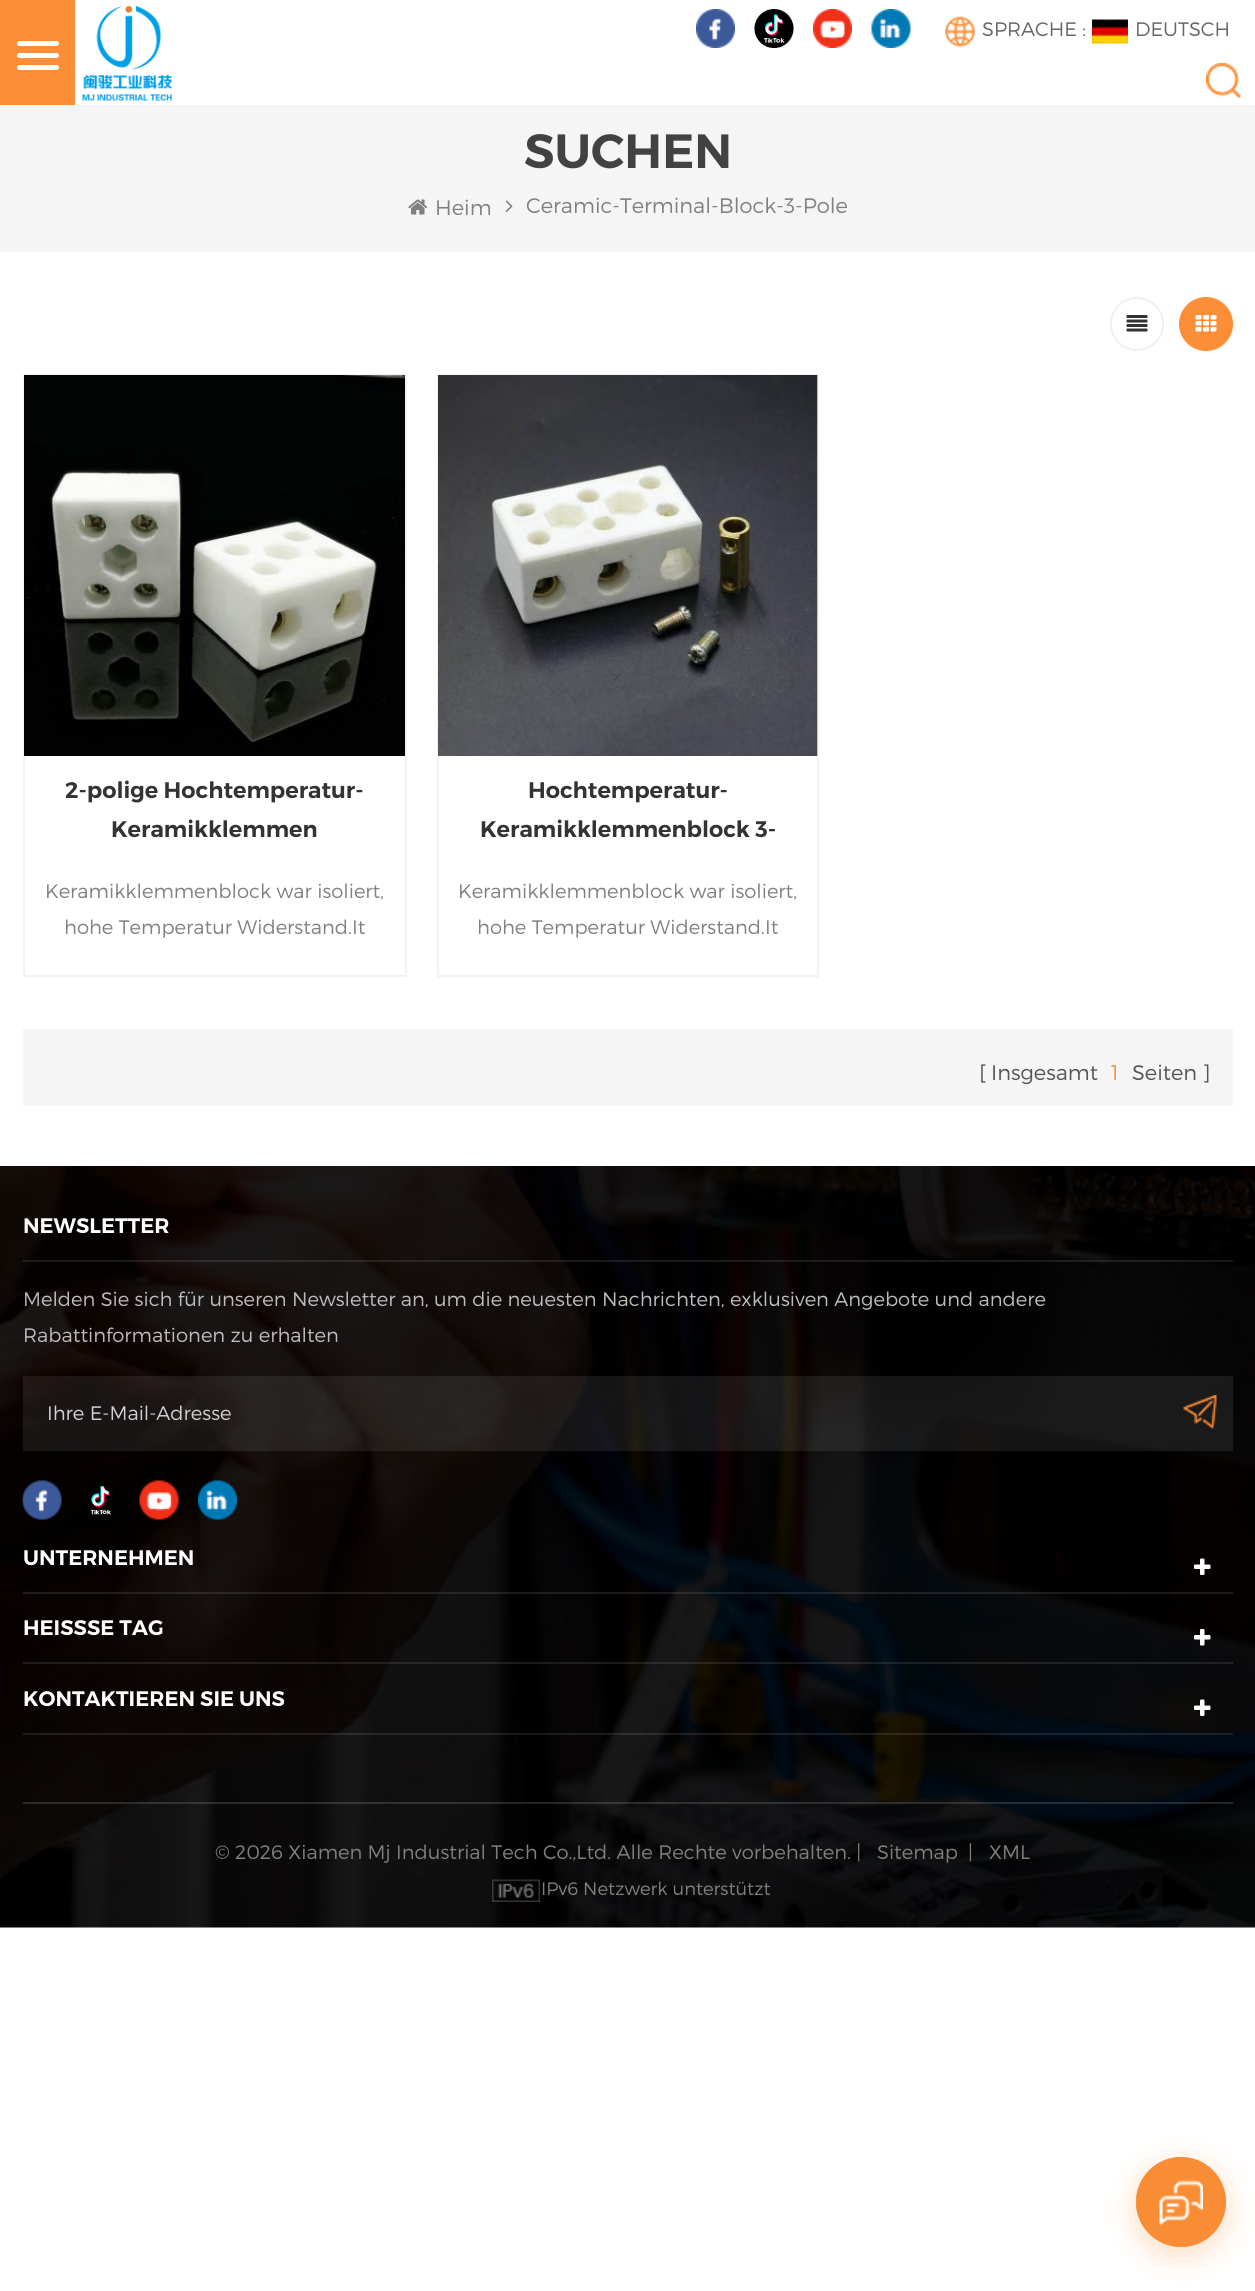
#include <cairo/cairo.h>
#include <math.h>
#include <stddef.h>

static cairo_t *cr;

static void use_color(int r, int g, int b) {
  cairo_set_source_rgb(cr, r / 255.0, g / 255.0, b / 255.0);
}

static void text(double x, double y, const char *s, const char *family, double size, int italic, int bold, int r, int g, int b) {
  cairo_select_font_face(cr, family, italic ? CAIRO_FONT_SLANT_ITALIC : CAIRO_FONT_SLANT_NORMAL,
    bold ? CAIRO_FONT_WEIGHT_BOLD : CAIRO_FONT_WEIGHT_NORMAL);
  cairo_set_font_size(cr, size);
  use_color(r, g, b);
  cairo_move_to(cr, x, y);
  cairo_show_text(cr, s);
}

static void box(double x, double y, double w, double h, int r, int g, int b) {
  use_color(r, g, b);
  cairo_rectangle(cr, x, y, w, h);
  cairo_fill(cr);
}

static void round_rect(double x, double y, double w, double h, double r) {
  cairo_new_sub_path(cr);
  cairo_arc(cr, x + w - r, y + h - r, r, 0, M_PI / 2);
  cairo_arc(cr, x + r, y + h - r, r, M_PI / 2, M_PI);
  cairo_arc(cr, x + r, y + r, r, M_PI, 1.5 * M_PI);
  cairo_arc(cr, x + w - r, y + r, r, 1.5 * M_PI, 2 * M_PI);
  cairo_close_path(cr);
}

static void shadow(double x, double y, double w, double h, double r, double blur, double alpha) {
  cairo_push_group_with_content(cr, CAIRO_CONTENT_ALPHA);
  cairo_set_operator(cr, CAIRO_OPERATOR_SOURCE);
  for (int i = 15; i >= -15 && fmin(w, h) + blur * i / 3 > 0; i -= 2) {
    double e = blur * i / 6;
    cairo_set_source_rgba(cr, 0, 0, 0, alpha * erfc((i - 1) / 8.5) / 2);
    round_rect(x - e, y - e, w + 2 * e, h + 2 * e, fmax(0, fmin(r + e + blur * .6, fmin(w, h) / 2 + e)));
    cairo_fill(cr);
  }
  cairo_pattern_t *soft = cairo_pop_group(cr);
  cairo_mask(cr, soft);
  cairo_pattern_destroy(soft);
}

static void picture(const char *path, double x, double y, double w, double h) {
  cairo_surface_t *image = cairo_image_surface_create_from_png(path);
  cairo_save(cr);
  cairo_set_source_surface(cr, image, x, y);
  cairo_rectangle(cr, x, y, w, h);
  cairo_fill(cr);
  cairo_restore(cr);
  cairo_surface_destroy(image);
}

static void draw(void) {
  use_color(255, 255, 255);
  cairo_paint(cr);
  picture("img_01.png", 82, 6, 90, 95);
  box(0, 0, 75, 105, 251, 142, 54);
  use_color(255, 255, 255);
  round_rect(17, 53, 42, 5, 2.5);
  cairo_fill(cr);
  round_rect(17, 41, 42, 5, 2.5);
  cairo_fill(cr);
  round_rect(17, 65, 42, 5, 2.5);
  cairo_fill(cr);
  picture("img_02.png", 696, 9, 39, 39);
  picture("img_03.png", 754, 9, 40, 39);
  picture("img_04.png", 813, 9, 39, 39);
  picture("img_05.png", 871, 9, 40, 39);
  picture("img_06.png", 945, 16, 30, 31);
  picture("img_07.png", 1092, 19, 36, 25);
  picture("img_08.png", 1206, 63, 35, 35);
  box(0, 105, 1255, 147, 245, 245, 245);
  picture("img_09.png", 408, 199, 20, 16);
  picture("img_10.png", 505, 200, 8, 12);
  cairo_arc(cr, 1137, 324, 26, 0, 2 * M_PI);
  use_color(239, 239, 239);
  cairo_stroke(cr);
  picture("img_11.png", 1126, 315, 22, 17);
  use_color(251, 142, 54);
  cairo_arc(cr, 1206, 324, 26, 0, 2 * M_PI);
  cairo_fill_preserve(cr);
  cairo_stroke(cr);
  picture("img_12.png", 1195, 315, 22, 17);
  cairo_rectangle(cr, 24, 375, 382, 601);
  use_color(242, 242, 242);
  cairo_stroke(cr);
  picture("img_13.png", 24, 375, 381, 381);
  cairo_rectangle(cr, 438, 375, 380, 601);
  cairo_stroke(cr);
  picture("img_14.png", 438, 375, 380, 381);
  box(23, 1029, 1210, 77, 245, 245, 245);
  picture("img_15.png", 0, 1166, 1255, 762);
  cairo_set_source_rgba(cr, 1, 1, 1, 0.1);
  cairo_rectangle(cr, 23, 1260, 1210, 2);
  cairo_fill(cr);
  cairo_set_source_rgba(cr, 1, 1, 1, 0.08);
  cairo_rectangle(cr, 23, 1376, 1210, 75);
  cairo_fill(cr);
  picture("img_16.png", 1183, 1395, 34, 34);
  picture("img_17.png", 22, 1480, 40, 40);
  picture("img_18.png", 84, 1481, 27, 34);
  picture("img_19.png", 139, 1480, 40, 40);
  picture("img_20.png", 198, 1480, 39, 40);
  cairo_set_source_rgba(cr, 1, 1, 1, 0.1);
  cairo_rectangle(cr, 23, 1592, 1210, 2);
  cairo_fill(cr);
  picture("img_21.png", 1194, 1558, 17, 17);
  cairo_rectangle(cr, 23, 1662, 1210, 2);
  cairo_fill(cr);
  picture("img_22.png", 1194, 1629, 17, 17);
  cairo_rectangle(cr, 23, 1733, 1210, 2);
  cairo_fill(cr);
  picture("img_23.png", 1194, 1699, 17, 17);
  cairo_set_source_rgba(cr, 1, 1, 1, 0.14);
  cairo_rectangle(cr, 23, 1802, 1210, 2);
  cairo_fill(cr);
  picture("img_24.png", 492, 1879, 48, 23);
  use_color(251, 142, 54);
  shadow(1136, 2165, 90, 90, 45, 15, 0.3);
  use_color(251, 142, 54);
  cairo_arc(cr, 1181, 2202, 45, 0, 2 * M_PI);
  cairo_fill(cr);
  cairo_set_source_rgba(cr, 0.984, 0.557, 0.212, 0.25);
  cairo_arc(cr, 1181, 2202, 45, 0, 2 * M_PI);
  cairo_fill(cr);
  cairo_arc(cr, 1181, 2202, 45, 0, 2 * M_PI);
  cairo_fill(cr);
  cairo_arc(cr, 1181, 2202, 45, 0, 2 * M_PI);
  cairo_fill(cr);
  picture("img_25.png", 1159, 2180, 44, 45);
  text(982, 36, "SPRACHE :", "Montserrat Light", 19.5, 0, 0, 102, 102, 102);
  text(1135, 36, "DEUTSCH", "Montserrat Light", 19.5, 0, 0, 102, 102, 102);
  text(524, 168, "SUCHEN", "Montserrat SemiBold", 48, 0, 0, 66, 66, 66);
  text(435, 215, "Heim", "Montserrat Light", 21, 0, 0, 128, 128, 128);
  text(526, 213, "Ceramic-Terminal-Block-3-Pole", "Montserrat Light", 21, 0, 0, 128, 128, 128);
  text(65, 798, "2-polige Hochtemperatur-", "Montserrat SemiBold", 22.5, 0, 0, 51, 51, 51);
  text(111, 837, "Keramikklemmen", "Montserrat SemiBold", 22.5, 0, 0, 51, 51, 51);
  text(45, 898, "Keramikklemmenblock war isoliert,", "Montserrat Light", 19.5, 0, 0, 128, 128, 128);
  text(64, 934, "hohe Temperatur Widerstand.It", "Montserrat Light", 19.5, 0, 0, 128, 128, 128);
  text(528, 798, "Hochtemperatur-", "Montserrat SemiBold", 22.5, 0, 0, 51, 51, 51);
  text(480, 837, "Keramikklemmenblock 3-", "Montserrat SemiBold", 22.5, 0, 0, 51, 51, 51);
  text(458, 898, "Keramikklemmenblock war isoliert,", "Montserrat Light", 19.5, 0, 0, 128, 128, 128);
  text(477, 934, "hohe Temperatur Widerstand.It", "Montserrat Light", 19.5, 0, 0, 128, 128, 128);
  text(979, 1080, "[", "Montserrat Light", 21, 0, 0, 85, 85, 85);
  text(991, 1080, "Insgesamt", "Montserrat Light", 21, 0, 0, 85, 85, 85);
  text(1111, 1080, "1", "Montserrat Light", 21, 0, 0, 251, 142, 54);
  text(1132, 1080, "Seiten", "Montserrat Light", 21, 0, 0, 85, 85, 85);
  text(1202, 1080, "]", "Montserrat Light", 21, 0, 0, 85, 85, 85);
  text(23, 1233, "NEWSLETTER", "Montserrat SemiBold", 21, 0, 0, 255, 255, 255);
  text(23, 1306, "Melden Sie sich für unseren Newsletter an, um die neuesten Nachrichten, exklusiven Angebote und andere", "Montserrat Light", 19.5, 0, 0, 189, 189, 189);
  text(23, 1342, "Rabattinformationen zu erhalten", "Montserrat Light", 19.5, 0, 0, 189, 189, 189);
  text(47, 1420, "Ihre E-Mail-Adresse", "Montserrat Light", 19.5, 0, 0, 209, 209, 209);
  text(23, 1565, "UNTERNEHMEN", "Montserrat SemiBold", 21, 0, 0, 255, 255, 255);
  text(23, 1635, "HEISSSE TAG", "Montserrat SemiBold", 21, 0, 0, 255, 255, 255);
  text(23, 1706, "KONTAKTIEREN SIE UNS", "Montserrat SemiBold", 21, 0, 0, 255, 255, 255);
  text(215, 1859, "© 2026 Xiamen Mj Industrial Tech Co.,Ltd. Alle Rechte vorbehalten. |", "Montserrat Light", 19.5, 0, 0, 128, 128, 128);
  text(877, 1859, "Sitemap", "Montserrat Light", 19.5, 0, 0, 128, 128, 128);
  text(968, 1859, "|", "Montserrat Light", 19.5, 0, 0, 128, 128, 128);
  text(989, 1859, "XML", "Montserrat Light", 19.5, 0, 0, 128, 128, 128);
  text(541, 1895, "IPv6 Netzwerk unterstützt", "Montserrat Light", 18, 0, 0, 128, 128, 128);
}

int main(void) {
  cairo_surface_t *surface = cairo_image_surface_create(CAIRO_FORMAT_RGB24, 1255, 2291);
  cr = cairo_create(surface);
  cairo_font_options_t *options = cairo_font_options_create();
  cairo_font_options_set_hint_metrics(options, CAIRO_HINT_METRICS_OFF);
  cairo_font_options_set_hint_style(options, CAIRO_HINT_STYLE_NONE);
  cairo_set_font_options(cr, options);
  cairo_set_miter_limit(cr, 4);
  draw();
  cairo_surface_write_to_png(surface, "out.png");
  cairo_font_options_destroy(options);
  cairo_destroy(cr);
  cairo_surface_destroy(surface);
  return 0;
}
